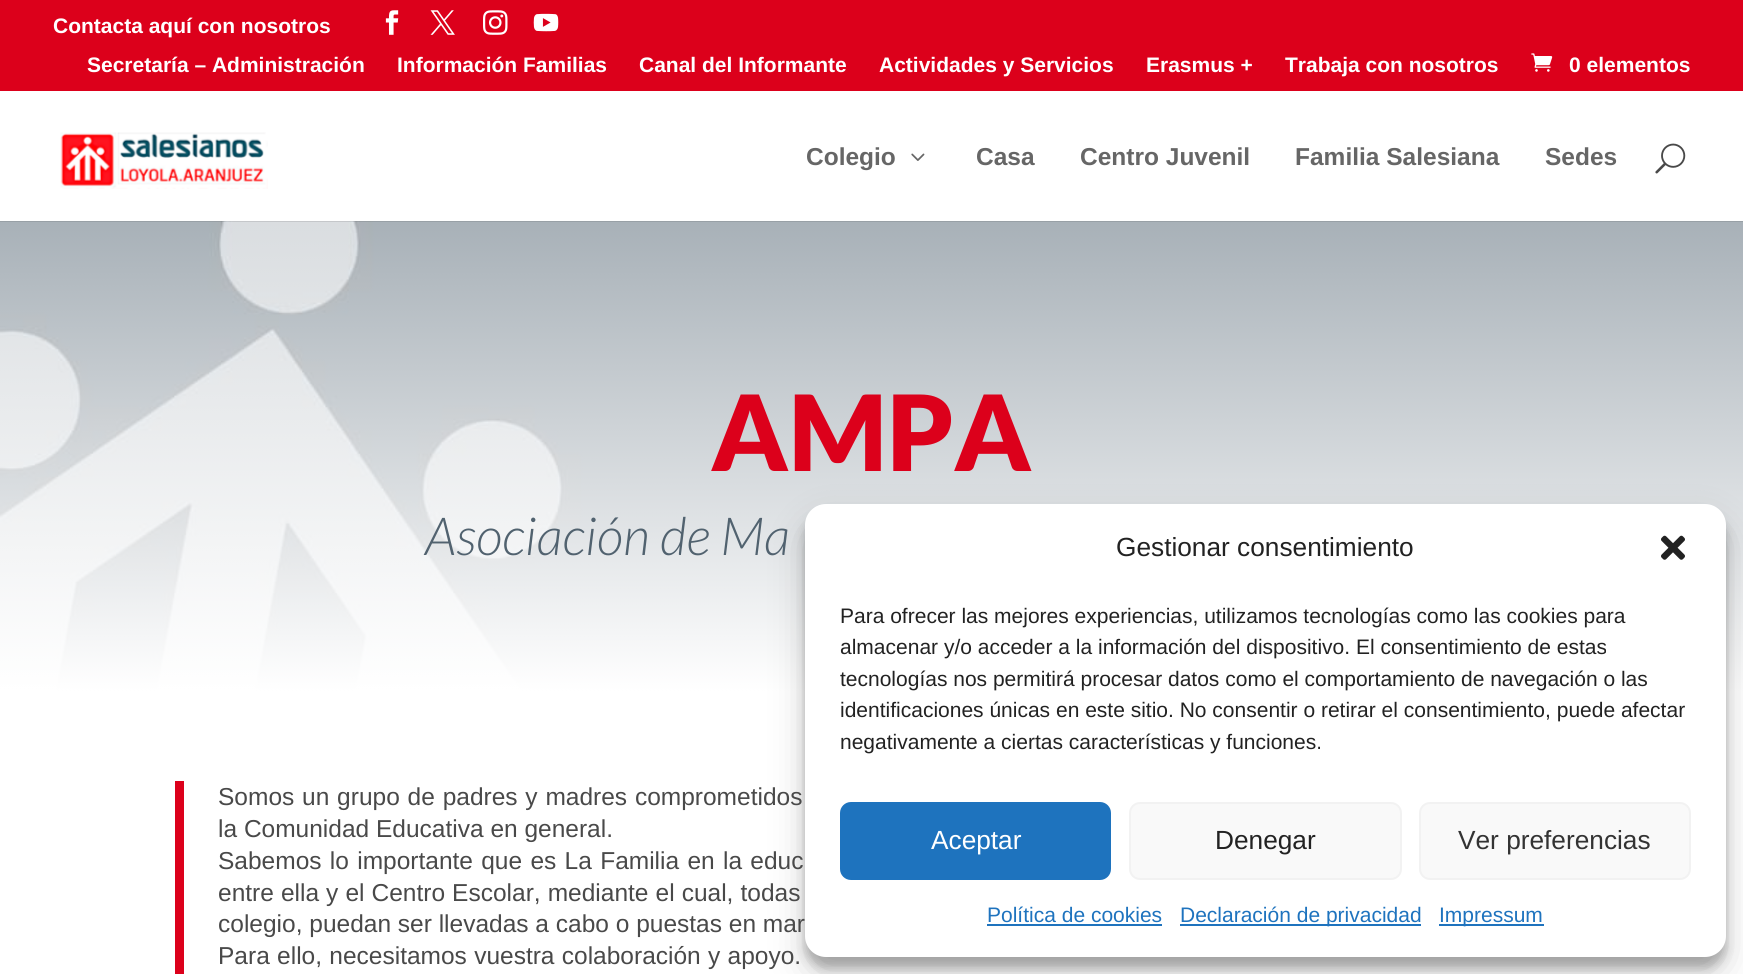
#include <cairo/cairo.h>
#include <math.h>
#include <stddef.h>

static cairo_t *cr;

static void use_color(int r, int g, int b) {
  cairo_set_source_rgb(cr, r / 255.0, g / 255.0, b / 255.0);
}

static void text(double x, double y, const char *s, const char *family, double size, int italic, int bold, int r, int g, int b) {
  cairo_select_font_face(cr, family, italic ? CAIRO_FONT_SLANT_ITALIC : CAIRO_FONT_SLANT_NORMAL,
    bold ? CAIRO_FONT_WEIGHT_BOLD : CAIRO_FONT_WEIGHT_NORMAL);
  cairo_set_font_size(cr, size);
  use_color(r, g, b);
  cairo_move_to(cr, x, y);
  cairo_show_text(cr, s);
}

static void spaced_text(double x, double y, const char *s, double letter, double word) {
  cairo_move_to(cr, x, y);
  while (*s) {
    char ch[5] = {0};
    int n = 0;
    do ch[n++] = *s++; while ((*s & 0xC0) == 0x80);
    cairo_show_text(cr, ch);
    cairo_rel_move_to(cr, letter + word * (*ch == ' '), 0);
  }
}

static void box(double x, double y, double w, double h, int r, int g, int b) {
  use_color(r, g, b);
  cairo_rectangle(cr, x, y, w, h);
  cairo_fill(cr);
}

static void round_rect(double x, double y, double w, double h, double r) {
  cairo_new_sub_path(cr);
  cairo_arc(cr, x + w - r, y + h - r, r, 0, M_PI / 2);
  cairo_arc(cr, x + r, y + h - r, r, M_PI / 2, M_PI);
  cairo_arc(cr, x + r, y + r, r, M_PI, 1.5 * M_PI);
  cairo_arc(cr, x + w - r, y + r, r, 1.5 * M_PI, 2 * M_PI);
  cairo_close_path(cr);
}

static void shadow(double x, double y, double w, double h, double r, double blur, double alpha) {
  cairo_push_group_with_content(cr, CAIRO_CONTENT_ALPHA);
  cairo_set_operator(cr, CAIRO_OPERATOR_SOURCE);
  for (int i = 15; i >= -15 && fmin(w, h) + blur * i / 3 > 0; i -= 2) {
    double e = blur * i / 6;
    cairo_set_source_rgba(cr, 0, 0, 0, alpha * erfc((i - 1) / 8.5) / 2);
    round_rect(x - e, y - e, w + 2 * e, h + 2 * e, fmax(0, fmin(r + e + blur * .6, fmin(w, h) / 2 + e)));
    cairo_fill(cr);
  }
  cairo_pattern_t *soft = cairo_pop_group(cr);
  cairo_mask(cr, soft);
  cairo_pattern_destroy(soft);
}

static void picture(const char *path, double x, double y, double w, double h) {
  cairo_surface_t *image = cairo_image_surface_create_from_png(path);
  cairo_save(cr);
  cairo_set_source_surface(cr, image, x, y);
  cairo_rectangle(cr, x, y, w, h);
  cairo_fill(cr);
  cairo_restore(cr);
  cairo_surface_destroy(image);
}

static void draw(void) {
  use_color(255, 255, 255);
  cairo_paint(cr);
  box(0, 0, 1743, 91, 220, 0, 27);
  picture("img_01.png", 385, 10, 14, 25);
  picture("img_02.png", 430, 10, 25, 25);
  picture("img_03.png", 483, 10, 25, 25);
  picture("img_04.png", 533, 13, 26, 19);
  picture("img_05.png", 1531, 53, 22, 19);
  picture("img_09.png", 0, 221, 1743, 470);
  cairo_set_source_rgba(cr, 0, 0, 0, 0.1);
  cairo_rectangle(cr, 0, 221, 1743, 1);
  cairo_fill(cr);
  picture("img_06.png", 60, 132, 208, 57);
  picture("img_07.png", 911, 153, 14, 8);
  picture("img_08.png", 1655, 143, 31, 31);
  box(175, 781, 9, 193, 220, 0, 27);
  use_color(0, 0, 0);
  shadow(805, 515, 921, 453, 21, 5, 0.23);
  shadow(805, 522, 921, 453, 21, 17.5, 0.19);
  use_color(255, 255, 255);
  round_rect(805, 504, 921, 453, 21);
  cairo_fill(cr);
  picture("img_10.png", 1661, 535, 24, 25);
  use_color(30, 115, 190);
  round_rect(841, 803, 269, 76, 10);
  cairo_fill_preserve(cr);
  cairo_stroke(cr);
  use_color(249, 249, 249);
  round_rect(1130, 803, 271, 76, 10);
  cairo_fill_preserve(cr);
  use_color(242, 242, 242);
  cairo_stroke(cr);
  use_color(249, 249, 249);
  round_rect(1420, 803, 270, 76, 10);
  cairo_fill_preserve(cr);
  use_color(242, 242, 242);
  cairo_stroke(cr);
  box(987, 924, 175, 2, 30, 115, 190);
  box(1180, 924, 241, 2, 30, 115, 190);
  box(1439, 924, 105, 2, 30, 115, 190);
  text(53, 33, "Contacta aquí con nosotros", "Liberation Sans", 21, 0, 1, 255, 255, 255);
  text(87, 72, "Secretaría – Administración", "Liberation Sans", 21, 0, 1, 255, 255, 255);
  text(397, 72, "Información Familias", "Liberation Sans", 21, 0, 1, 255, 255, 255);
  text(639, 72, "Canal del Informante", "Liberation Sans", 21, 0, 1, 255, 255, 255);
  text(879, 72, "Actividades y Servicios", "Liberation Sans", 21, 0, 1, 255, 255, 255);
  text(1146, 72, "Erasmus +", "Liberation Sans", 21, 0, 1, 255, 255, 255);
  text(1285, 72, "Trabaja con nosotros", "Liberation Sans", 21, 0, 1, 255, 255, 255);
  text(1569, 72, "0 elementos", "Liberation Sans", 21, 0, 1, 255, 255, 255);
  text(806, 165, "Colegio", "Liberation Sans", 24.5, 0, 1, 102, 102, 102);
  text(976, 165, "Casa", "Liberation Sans", 24.5, 0, 1, 102, 102, 102);
  text(1080, 165, "Centro Juvenil", "Liberation Sans", 24.5, 0, 1, 102, 102, 102);
  text(1295, 165, "Familia Salesiana", "Liberation Sans", 24.5, 0, 1, 102, 102, 102);
  text(1545, 165, "Sedes", "Liberation Sans", 24.5, 0, 1, 102, 102, 102);
  text(711, 471, "AMPA", "Lato Black", 105, 0, 0, 220, 0, 27);
  text(425, 555, "Asociación de Ma", "Lato Light", 52.5, 1, 0, 81, 98, 111);
  cairo_select_font_face(cr, "Liberation Sans", CAIRO_FONT_SLANT_NORMAL, CAIRO_FONT_WEIGHT_NORMAL);
  cairo_set_font_size(cr, 24.5);
  use_color(73, 73, 73);
  spaced_text(218, 805, "Somos un grupo de padres y madres comprometidos", 0, 1);
  text(218, 837, "la Comunidad Educativa en general.", "Liberation Sans", 24.5, 0, 0, 73, 73, 73);
  spaced_text(218, 869, "Sabemos lo importante que es La Familia en la educ", 0, 1.5);
  spaced_text(218, 901, "entre ella y el Centro Escolar, mediante el cual, todas", 0, 0.25);
  text(218, 932, "colegio, puedan ser llevadas a cabo o puestas en mar", "Liberation Sans", 24.5, 0, 0, 73, 73, 73);
  spaced_text(218, 964, "Para ello, necesitamos vuestra colaboración y apoyo.", 0, 0.5);
  text(1116, 556, "Gestionar consentimiento", "Liberation Sans", 26.25, 0, 0, 34, 34, 34);
  text(840, 623, "Para ofrecer las mejores experiencias, utilizamos tecnologías como las cookies para", "Liberation Sans", 21, 0, 0, 34, 34, 34);
  text(840, 654, "almacenar y/o acceder a la información del dispositivo. El consentimiento de estas", "Liberation Sans", 21, 0, 0, 34, 34, 34);
  text(840, 686, "tecnologías nos permitirá procesar datos como el comportamiento de navegación o las", "Liberation Sans", 21, 0, 0, 34, 34, 34);
  text(840, 717, "identificaciones únicas en este sitio. No consentir o retirar el consentimiento, puede afectar", "Liberation Sans", 21, 0, 0, 34, 34, 34);
  text(840, 749, "negativamente a ciertas características y funciones.", "Liberation Sans", 21, 0, 0, 34, 34, 34);
  text(931, 849, "Aceptar", "Liberation Sans", 26.25, 0, 0, 255, 255, 255);
  text(1215, 849, "Denegar", "Liberation Sans", 26.25, 0, 0, 34, 34, 34);
  text(1458, 849, "Ver preferencias", "Liberation Sans", 26.25, 0, 0, 51, 51, 51);
  text(987, 922, "Política de cookies", "Liberation Sans", 21, 0, 0, 30, 115, 190);
  text(1180, 922, "Declaración de privacidad", "Liberation Sans", 21, 0, 0, 30, 115, 190);
  text(1439, 922, "Impressum", "Liberation Sans", 21, 0, 0, 30, 115, 190);
}

int main(void) {
  cairo_surface_t *surface = cairo_image_surface_create(CAIRO_FORMAT_RGB24, 1743, 974);
  cr = cairo_create(surface);
  cairo_font_options_t *options = cairo_font_options_create();
  cairo_font_options_set_hint_metrics(options, CAIRO_HINT_METRICS_OFF);
  cairo_font_options_set_hint_style(options, CAIRO_HINT_STYLE_NONE);
  cairo_set_font_options(cr, options);
  cairo_set_miter_limit(cr, 4);
  draw();
  cairo_surface_write_to_png(surface, "out.png");
  cairo_font_options_destroy(options);
  cairo_destroy(cr);
  cairo_surface_destroy(surface);
  return 0;
}
